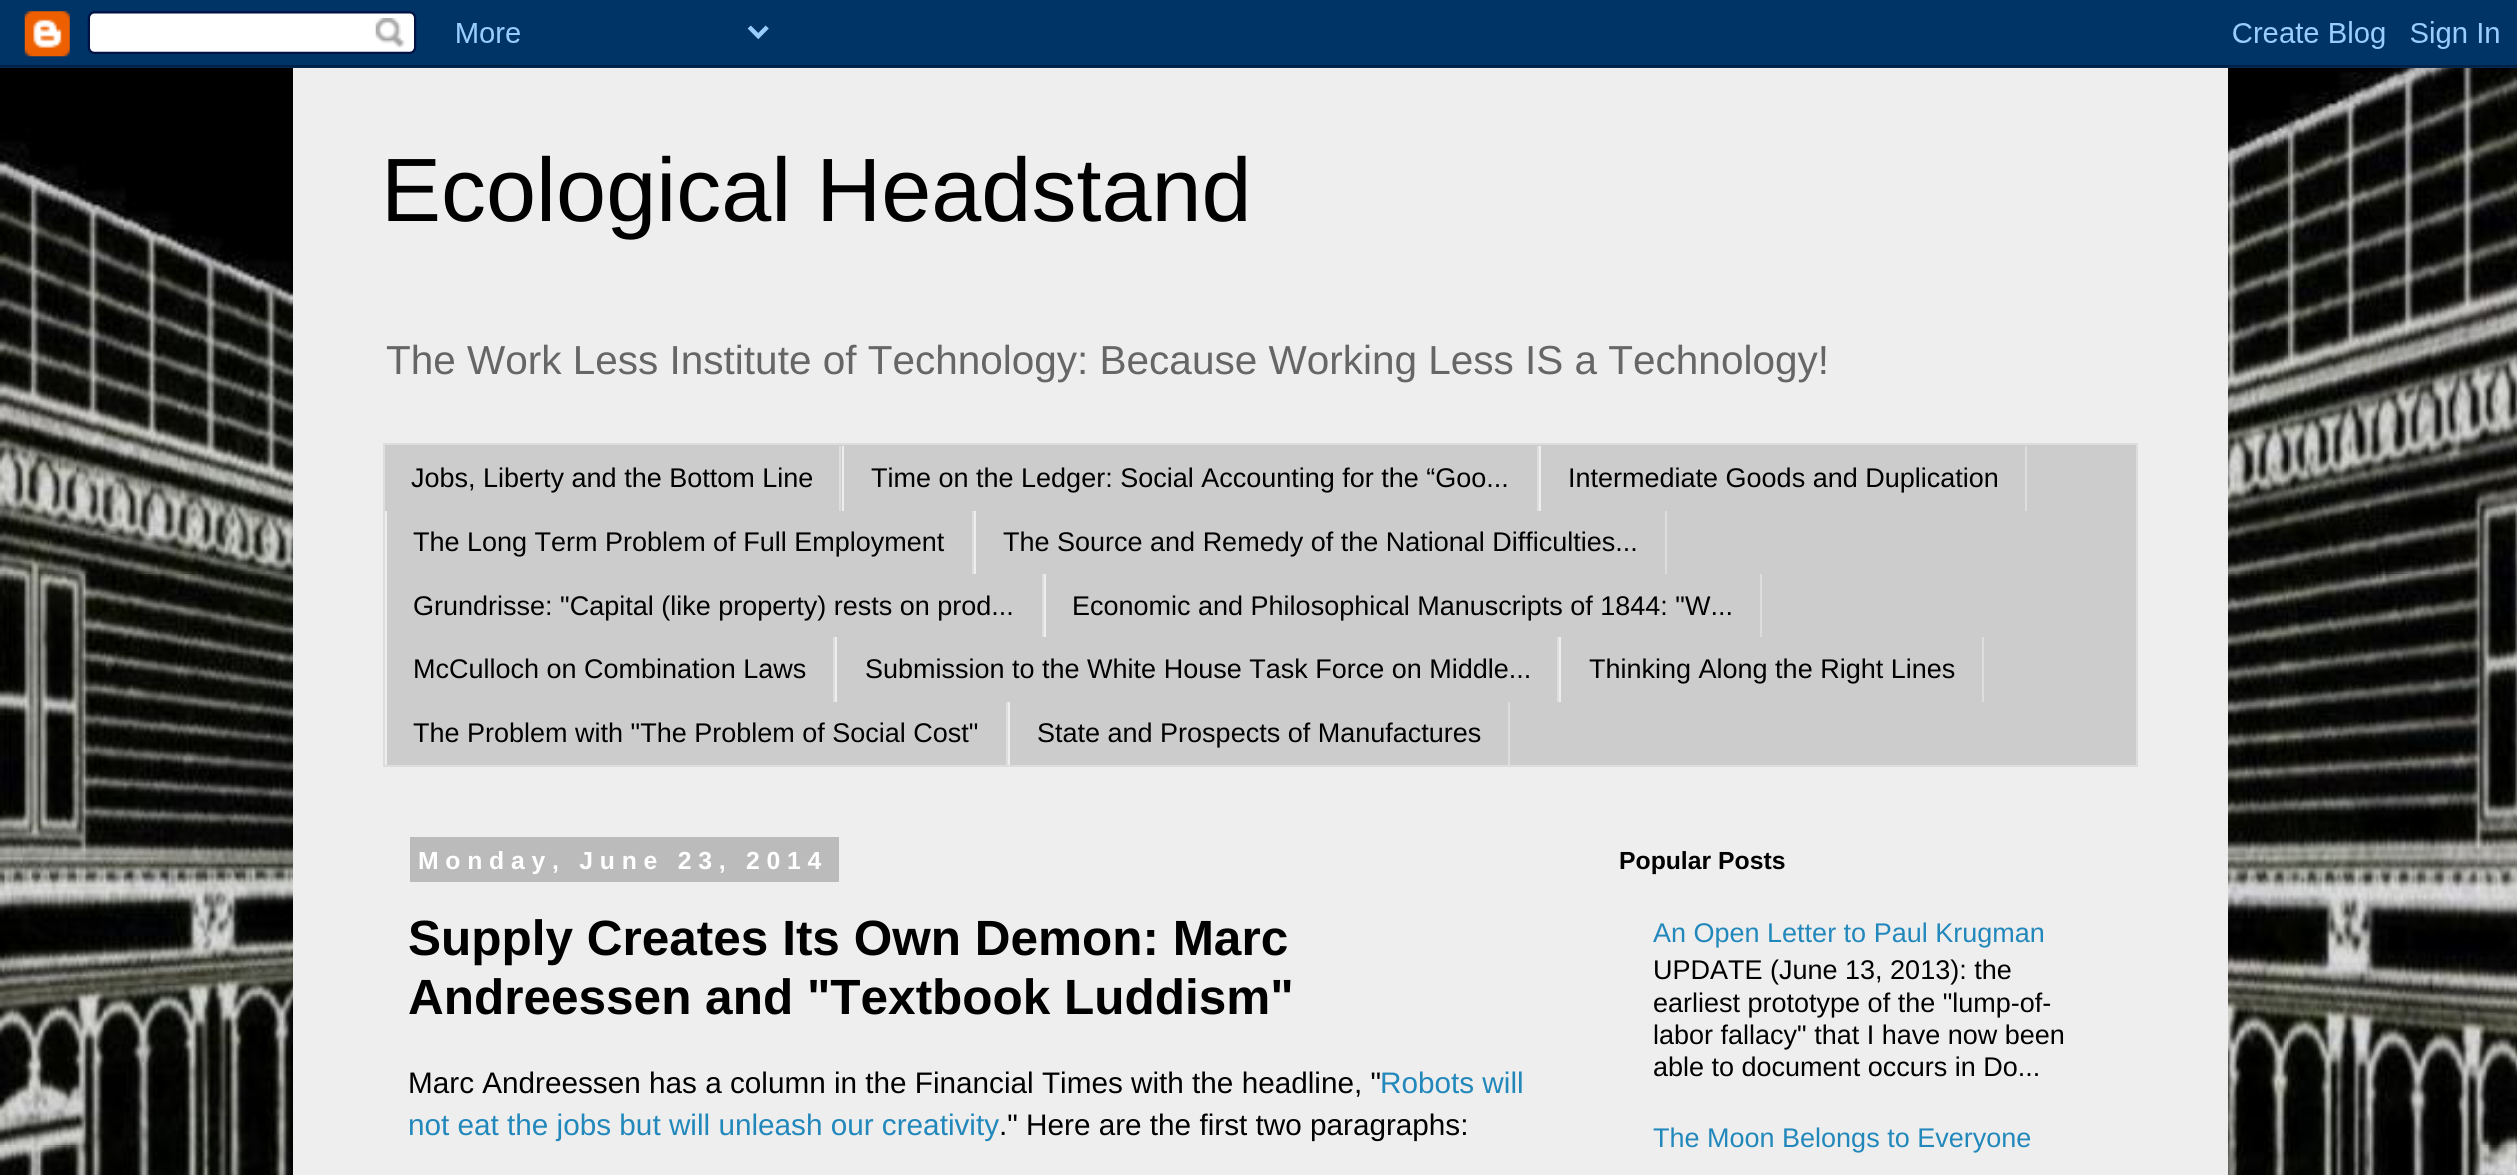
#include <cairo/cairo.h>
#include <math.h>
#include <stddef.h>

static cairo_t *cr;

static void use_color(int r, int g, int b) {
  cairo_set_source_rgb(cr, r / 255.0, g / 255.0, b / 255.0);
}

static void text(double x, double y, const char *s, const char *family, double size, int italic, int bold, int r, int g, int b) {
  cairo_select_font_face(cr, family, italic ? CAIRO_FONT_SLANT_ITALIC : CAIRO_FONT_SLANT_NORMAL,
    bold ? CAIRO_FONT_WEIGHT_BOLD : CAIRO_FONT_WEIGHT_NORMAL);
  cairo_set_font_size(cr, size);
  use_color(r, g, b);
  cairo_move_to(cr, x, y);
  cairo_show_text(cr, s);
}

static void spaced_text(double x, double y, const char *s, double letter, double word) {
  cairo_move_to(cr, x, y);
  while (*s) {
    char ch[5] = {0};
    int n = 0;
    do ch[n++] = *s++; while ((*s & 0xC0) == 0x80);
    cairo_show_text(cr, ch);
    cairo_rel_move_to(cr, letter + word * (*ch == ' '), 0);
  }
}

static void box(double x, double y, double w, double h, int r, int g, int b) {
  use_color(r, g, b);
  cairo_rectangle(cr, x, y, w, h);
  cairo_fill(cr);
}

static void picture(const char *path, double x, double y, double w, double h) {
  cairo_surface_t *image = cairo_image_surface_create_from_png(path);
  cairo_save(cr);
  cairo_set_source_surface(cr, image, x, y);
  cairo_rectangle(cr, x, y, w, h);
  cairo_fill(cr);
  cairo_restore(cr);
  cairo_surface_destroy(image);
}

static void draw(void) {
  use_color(255, 255, 255);
  cairo_paint(cr);
  picture("img_01.png", 0, 65, 2517, 1110);
  picture("img_02.png", 0, 0, 2517, 68);
  box(293, 68, 1935, 1107, 238, 238, 238);
  use_color(204, 204, 204);
  cairo_rectangle(cr, 384, 444, 1753, 322);
  cairo_fill_preserve(cr);
  use_color(221, 221, 221);
  cairo_stroke(cr);
  box(839, 446, 2, 65, 221, 221, 221);
  box(1537, 446, 2, 65, 221, 221, 221);
  box(842, 446, 2, 65, 238, 238, 238);
  box(2025, 446, 2, 65, 221, 221, 221);
  box(1539, 446, 2, 65, 238, 238, 238);
  box(972, 511, 2, 63, 221, 221, 221);
  box(385, 511, 2, 254, 238, 238, 238);
  box(1665, 511, 2, 63, 221, 221, 221);
  box(974, 511, 2, 63, 238, 238, 238);
  box(1042, 574, 2, 63, 221, 221, 221);
  box(1760, 574, 2, 63, 221, 221, 221);
  box(1044, 574, 2, 63, 238, 238, 238);
  box(833, 637, 2, 65, 221, 221, 221);
  box(1557, 637, 2, 65, 221, 221, 221);
  box(835, 637, 2, 65, 238, 238, 238);
  box(1982, 637, 2, 65, 221, 221, 221);
  box(1559, 637, 2, 65, 238, 238, 238);
  box(1006, 702, 2, 63, 221, 221, 221);
  box(1508, 702, 2, 63, 221, 221, 221);
  box(1008, 702, 2, 63, 238, 238, 238);
  box(410, 837, 429, 45, 187, 187, 187);
  text(381, 221, "Ecological Headstand", "Liberation Sans", 90, 0, 0, 0, 0, 0);
  text(386, 374, "The Work Less Institute of Technology: Because Working Less IS a Technology!", "Liberation Sans", 40.5, 0, 0, 102, 102, 102);
  text(411, 487, "Jobs, Liberty and the Bottom Line", "Liberation Sans", 27, 0, 0, 0, 0, 0);
  text(871, 487, "Time on the Ledger: Social Accounting for the “Goo...", "Liberation Sans", 27, 0, 0, 0, 0, 0);
  text(1568, 487, "Intermediate Goods and Duplication", "Liberation Sans", 27, 0, 0, 0, 0, 0);
  text(413, 551, "The Long Term Problem of Full Employment", "Liberation Sans", 27, 0, 0, 0, 0, 0);
  text(1003, 551, "The Source and Remedy of the National Difficulties...", "Liberation Sans", 27, 0, 0, 0, 0, 0);
  text(413, 615, "Grundrisse: \"Capital (like property) rests on prod...", "Liberation Sans", 27, 0, 0, 0, 0, 0);
  text(1072, 615, "Economic and Philosophical Manuscripts of 1844: \"W...", "Liberation Sans", 27, 0, 0, 0, 0, 0);
  text(413, 678, "McCulloch on Combination Laws", "Liberation Sans", 27, 0, 0, 0, 0, 0);
  text(865, 678, "Submission to the White House Task Force on Middle...", "Liberation Sans", 27, 0, 0, 0, 0, 0);
  text(1589, 678, "Thinking Along the Right Lines", "Liberation Sans", 27, 0, 0, 0, 0, 0);
  text(413, 742, "The Problem with \"The Problem of Social Cost\"", "Liberation Sans", 27, 0, 0, 0, 0, 0);
  text(1037, 742, "State and Prospects of Manufactures", "Liberation Sans", 27, 0, 0, 0, 0, 0);
  cairo_select_font_face(cr, "Liberation Sans", CAIRO_FONT_SLANT_NORMAL, CAIRO_FONT_WEIGHT_BOLD);
  cairo_set_font_size(cr, 24.75);
  use_color(255, 255, 255);
  spaced_text(418, 869, "Monday, June 23, 2014", 6.75, 0);
  text(408, 955, "Supply Creates Its Own Demon: Marc", "Liberation Sans", 49.5, 0, 1, 0, 0, 0);
  text(408, 1014, "Andreessen and \"Textbook Luddism\"", "Liberation Sans", 49.5, 0, 1, 0, 0, 0);
  text(408, 1093, "Marc Andreessen has a column in the Financial Times with the headline, \"", "Liberation Sans", 29.7, 0, 0, 0, 0, 0);
  text(1380, 1093, "Robots will", "Liberation Sans", 29.7, 0, 0, 34, 136, 187);
  text(408, 1135, "not eat the jobs but will unleash our creativity", "Liberation Sans", 29.7, 0, 0, 34, 136, 187);
  text(999, 1135, ".\" Here are the first two paragraphs:", "Liberation Sans", 29.7, 0, 0, 0, 0, 0);
  text(1619, 869, "Popular Posts", "Liberation Sans", 24.75, 0, 1, 0, 0, 0);
  text(1653, 942, "An Open Letter to Paul Krugman", "Liberation Sans", 27, 0, 0, 34, 136, 187);
  text(1653, 979, "UPDATE (June 13, 2013): the", "Liberation Sans", 27, 0, 0, 0, 0, 0);
  text(1653, 1012, "earliest prototype of the \"lump-of-", "Liberation Sans", 27, 0, 0, 0, 0, 0);
  text(1653, 1044, "labor fallacy\" that I have now been", "Liberation Sans", 27, 0, 0, 0, 0, 0);
  text(1653, 1076, "able to document occurs in Do...", "Liberation Sans", 27, 0, 0, 0, 0, 0);
  text(1653, 1147, "The Moon Belongs to Everyone", "Liberation Sans", 27, 0, 0, 34, 136, 187);
}

int main(void) {
  cairo_surface_t *surface = cairo_image_surface_create(CAIRO_FORMAT_RGB24, 2517, 1175);
  cr = cairo_create(surface);
  cairo_font_options_t *options = cairo_font_options_create();
  cairo_font_options_set_hint_metrics(options, CAIRO_HINT_METRICS_OFF);
  cairo_font_options_set_hint_style(options, CAIRO_HINT_STYLE_NONE);
  cairo_set_font_options(cr, options);
  cairo_set_miter_limit(cr, 4);
  draw();
  cairo_surface_write_to_png(surface, "out.png");
  cairo_font_options_destroy(options);
  cairo_destroy(cr);
  cairo_surface_destroy(surface);
  return 0;
}
